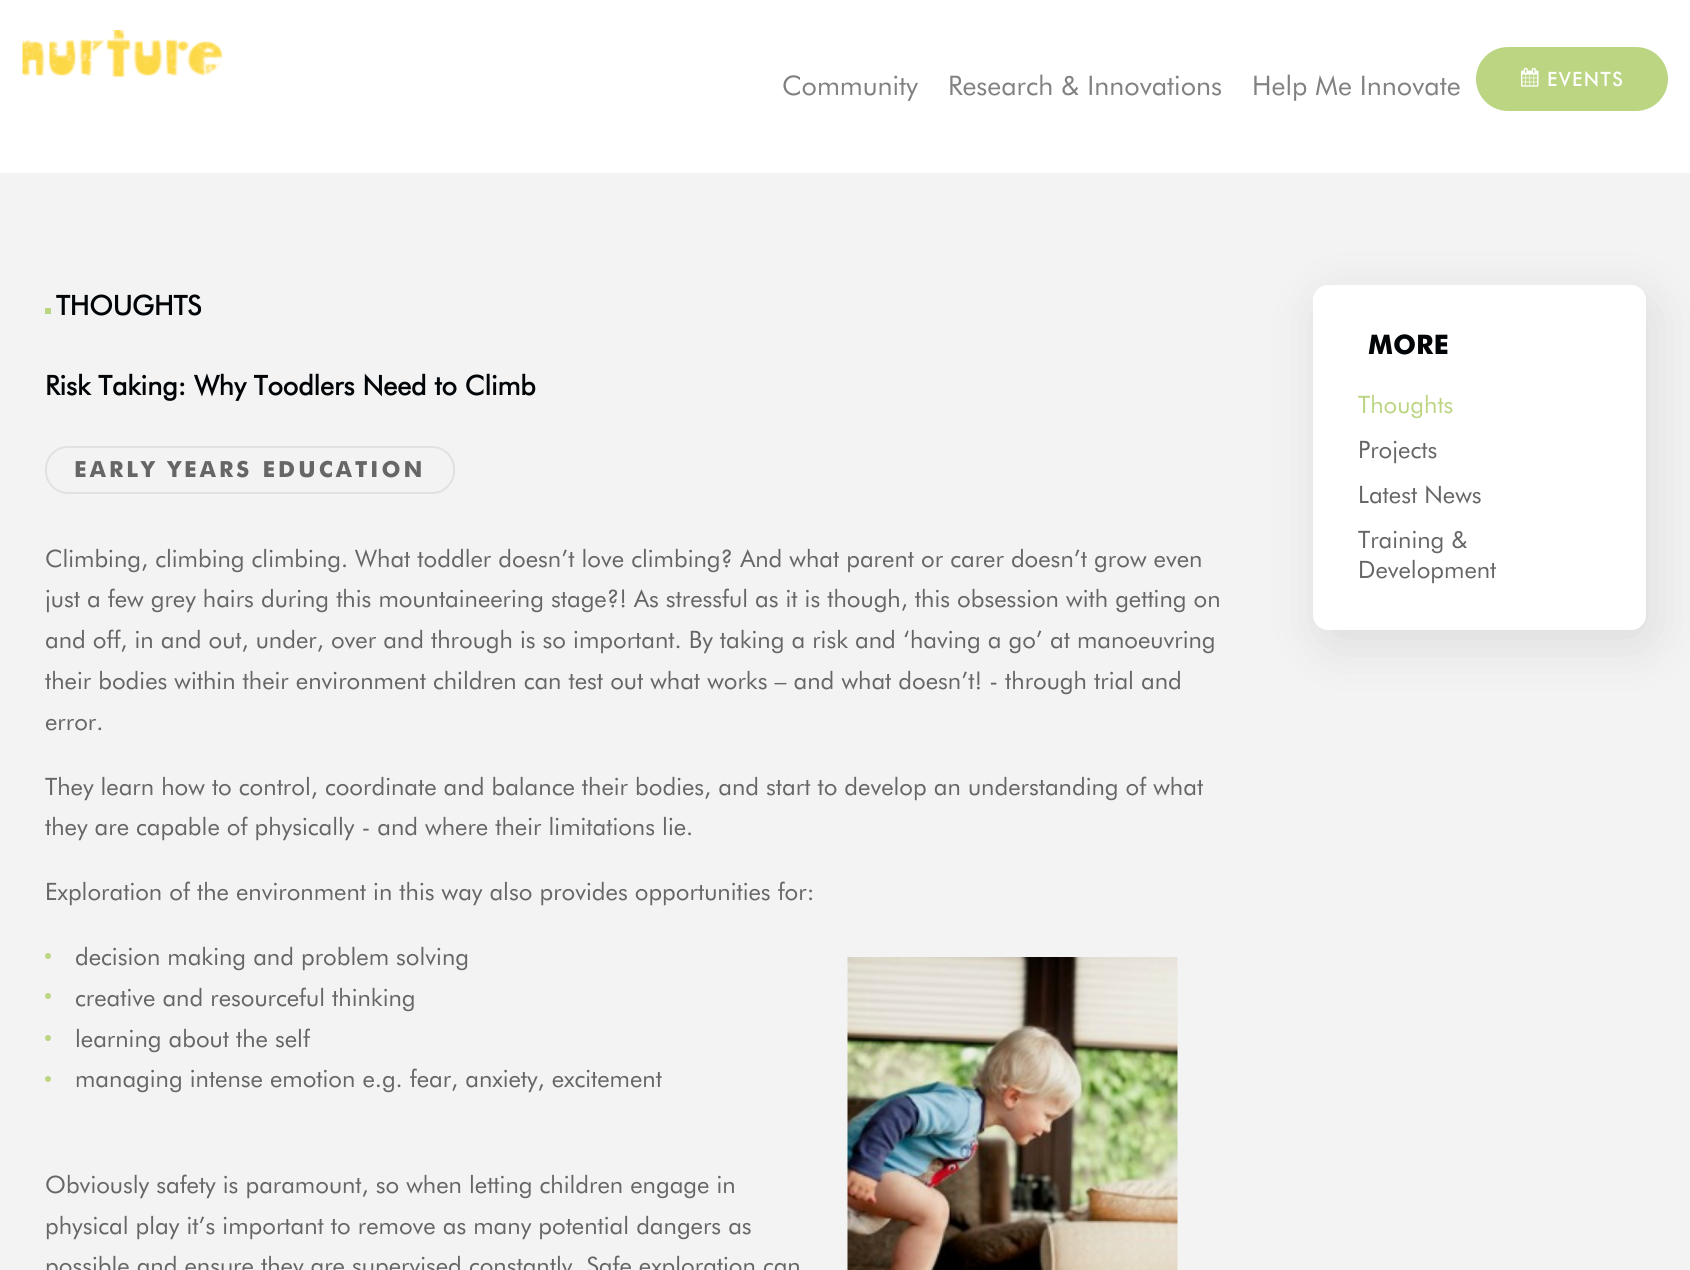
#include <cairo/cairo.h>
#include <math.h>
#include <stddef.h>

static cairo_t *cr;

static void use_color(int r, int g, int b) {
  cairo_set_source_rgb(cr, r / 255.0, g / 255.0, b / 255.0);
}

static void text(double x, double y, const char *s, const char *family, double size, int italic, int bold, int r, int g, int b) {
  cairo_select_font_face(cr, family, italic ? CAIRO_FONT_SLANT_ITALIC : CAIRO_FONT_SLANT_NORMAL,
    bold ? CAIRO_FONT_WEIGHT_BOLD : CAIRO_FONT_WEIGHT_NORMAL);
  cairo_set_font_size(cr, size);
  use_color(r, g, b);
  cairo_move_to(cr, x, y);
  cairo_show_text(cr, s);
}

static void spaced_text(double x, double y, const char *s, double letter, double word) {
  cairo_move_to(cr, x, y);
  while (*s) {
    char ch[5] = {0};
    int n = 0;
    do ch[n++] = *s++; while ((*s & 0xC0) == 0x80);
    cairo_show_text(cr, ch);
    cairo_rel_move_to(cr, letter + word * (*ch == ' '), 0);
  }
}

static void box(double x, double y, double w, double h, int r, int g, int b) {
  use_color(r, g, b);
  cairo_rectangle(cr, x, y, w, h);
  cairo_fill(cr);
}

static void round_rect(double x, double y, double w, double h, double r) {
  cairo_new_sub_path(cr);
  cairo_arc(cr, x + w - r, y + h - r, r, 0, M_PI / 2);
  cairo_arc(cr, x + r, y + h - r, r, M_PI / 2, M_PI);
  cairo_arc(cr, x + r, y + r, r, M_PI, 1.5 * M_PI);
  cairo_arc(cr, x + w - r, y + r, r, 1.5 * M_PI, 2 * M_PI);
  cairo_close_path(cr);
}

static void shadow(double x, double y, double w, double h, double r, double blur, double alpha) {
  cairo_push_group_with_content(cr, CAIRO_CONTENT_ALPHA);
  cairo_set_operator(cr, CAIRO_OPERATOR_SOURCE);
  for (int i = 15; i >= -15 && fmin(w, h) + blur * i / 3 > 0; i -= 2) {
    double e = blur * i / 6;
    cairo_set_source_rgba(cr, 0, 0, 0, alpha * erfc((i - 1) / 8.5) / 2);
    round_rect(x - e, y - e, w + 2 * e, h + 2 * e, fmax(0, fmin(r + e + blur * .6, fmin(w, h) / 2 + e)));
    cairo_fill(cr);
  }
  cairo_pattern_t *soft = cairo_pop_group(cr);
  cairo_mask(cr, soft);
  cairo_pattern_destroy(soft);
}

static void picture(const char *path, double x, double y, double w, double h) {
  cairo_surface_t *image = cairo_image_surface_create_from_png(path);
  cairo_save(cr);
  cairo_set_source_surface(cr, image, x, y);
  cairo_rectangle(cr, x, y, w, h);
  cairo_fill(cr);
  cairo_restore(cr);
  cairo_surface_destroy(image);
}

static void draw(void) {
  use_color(243, 243, 243);
  cairo_paint(cr);
  box(0, 0, 1690, 173, 255, 255, 255);
  picture("img_01.png", 22, 30, 200, 47);
  use_color(187, 213, 130);
  round_rect(1476, 47, 192, 64, 32);
  cairo_fill(cr);
  picture("img_02.png", 1521, 67, 18, 20);
  box(45, 308, 6, 6, 187, 213, 130);
  round_rect(46, 447, 408, 46, 22);
  use_color(225, 225, 225);
  cairo_stroke(cr);
  picture("img_03.png", 847, 957, 331, 313);
  use_color(187, 213, 130);
  cairo_arc(cr, 48, 956, 3, 0, 2 * M_PI);
  cairo_fill(cr);
  cairo_arc(cr, 48, 996, 3, 0, 2 * M_PI);
  cairo_fill(cr);
  cairo_arc(cr, 48, 1038, 3, 0, 2 * M_PI);
  cairo_fill(cr);
  cairo_arc(cr, 48, 1079, 3, 0, 2 * M_PI);
  cairo_fill(cr);
  use_color(0, 0, 0);
  shadow(1320, 299, 333, 345, 15, 26, 0.1);
  use_color(255, 255, 255);
  round_rect(1313, 285, 333, 345, 15);
  cairo_fill(cr);
  text(782, 95, "Community", "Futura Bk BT", 27, 0, 0, 129, 129, 129);
  text(948, 95, "Research & Innovations", "Futura Bk BT", 27, 0, 0, 129, 129, 129);
  text(1252, 95, "Help Me Innovate", "Futura Bk BT", 27, 0, 0, 129, 129, 129);
  cairo_select_font_face(cr, "Futura Bk BT", CAIRO_FONT_SLANT_NORMAL, CAIRO_FONT_WEIGHT_BOLD);
  cairo_set_font_size(cr, 19);
  use_color(255, 255, 255);
  spaced_text(1547, 86, "EVENTS", 2, 0);
  text(56, 315, "THOUGHTS", "Futura Bk BT", 27, 0, 1, 1, 5, 8);
  text(45, 395, "Risk Taking: Why Toodlers Need to Climb", "Futura Bk BT", 27, 0, 1, 1, 5, 8);
  cairo_select_font_face(cr, "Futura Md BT", CAIRO_FONT_SLANT_NORMAL, CAIRO_FONT_WEIGHT_BOLD);
  cairo_set_font_size(cr, 22.25);
  use_color(102, 102, 102);
  spaced_text(74, 477, "EARLY YEARS EDUCATION", 3.1, 0);
  text(45, 567, "Climbing, climbing climbing. What toddler doesn’t love climbing? And what parent or carer doesn’t grow even", "Futura Bk BT", 24, 0, 0, 102, 102, 102);
  text(45, 607, "just a few grey hairs during this mountaineering stage?! As stressful as it is though, this obsession with getting on", "Futura Bk BT", 24, 0, 0, 102, 102, 102);
  text(45, 648, "and off, in and out, under, over and through is so important. By taking a risk and ‘having a go’ at manoeuvring", "Futura Bk BT", 24, 0, 0, 102, 102, 102);
  text(45, 689, "their bodies within their environment children can test out what works – and what doesn’t! - through trial and", "Futura Bk BT", 24, 0, 0, 102, 102, 102);
  text(45, 730, "error.", "Futura Bk BT", 24, 0, 0, 102, 102, 102);
  text(45, 795, "They learn how to control, coordinate and balance their bodies, and start to develop an understanding of what", "Futura Bk BT", 24, 0, 0, 102, 102, 102);
  text(45, 835, "they are capable of physically - and where their limitations lie.", "Futura Bk BT", 24, 0, 0, 102, 102, 102);
  text(45, 900, "Exploration of the environment in this way also provides opportunities for:", "Futura Bk BT", 24, 0, 0, 102, 102, 102);
  text(75, 965, "decision making and problem solving", "Futura Bk BT", 24, 0, 0, 102, 102, 102);
  text(75, 1006, "creative and resourceful thinking", "Futura Bk BT", 24, 0, 0, 102, 102, 102);
  text(75, 1047, "learning about the self", "Futura Bk BT", 24, 0, 0, 102, 102, 102);
  text(75, 1087, "managing intense emotion e.g. fear, anxiety, excitement", "Futura Bk BT", 24, 0, 0, 102, 102, 102);
  text(45, 1193, "Obviously safety is paramount, so when letting children engage in", "Futura Bk BT", 24, 0, 0, 102, 102, 102);
  text(45, 1234, "physical play it’s important to remove as many potential dangers as", "Futura Bk BT", 24, 0, 0, 102, 102, 102);
  text(45, 1274, "possible and ensure they are supervised constantly. Safe exploration can", "Futura Bk BT", 24, 0, 0, 102, 102, 102);
  text(1368, 354, "MORE", "Futura Md BT", 27, 0, 1, 1, 5, 8);
  text(1358, 413, "Thoughts", "Futura Bk BT", 24, 0, 0, 187, 213, 130);
  text(1358, 458, "Projects", "Futura Bk BT", 24, 0, 0, 102, 102, 102);
  text(1358, 503, "Latest News", "Futura Bk BT", 24, 0, 0, 102, 102, 102);
  text(1358, 548, "Training &", "Futura Bk BT", 24, 0, 0, 102, 102, 102);
  text(1358, 578, "Development", "Futura Bk BT", 24, 0, 0, 102, 102, 102);
}

int main(void) {
  cairo_surface_t *surface = cairo_image_surface_create(CAIRO_FORMAT_RGB24, 1690, 1270);
  cr = cairo_create(surface);
  cairo_font_options_t *options = cairo_font_options_create();
  cairo_font_options_set_hint_metrics(options, CAIRO_HINT_METRICS_OFF);
  cairo_font_options_set_hint_style(options, CAIRO_HINT_STYLE_NONE);
  cairo_set_font_options(cr, options);
  cairo_set_miter_limit(cr, 4);
  draw();
  cairo_surface_write_to_png(surface, "out.png");
  cairo_font_options_destroy(options);
  cairo_destroy(cr);
  cairo_surface_destroy(surface);
  return 0;
}
